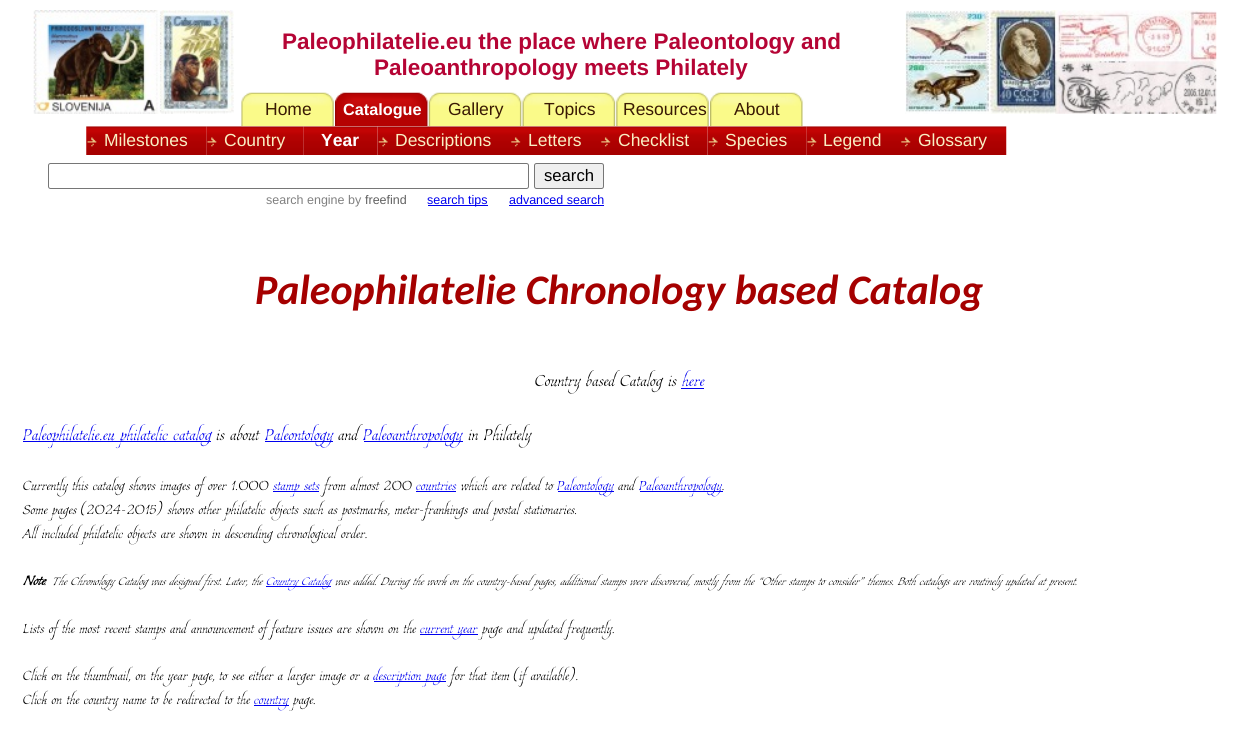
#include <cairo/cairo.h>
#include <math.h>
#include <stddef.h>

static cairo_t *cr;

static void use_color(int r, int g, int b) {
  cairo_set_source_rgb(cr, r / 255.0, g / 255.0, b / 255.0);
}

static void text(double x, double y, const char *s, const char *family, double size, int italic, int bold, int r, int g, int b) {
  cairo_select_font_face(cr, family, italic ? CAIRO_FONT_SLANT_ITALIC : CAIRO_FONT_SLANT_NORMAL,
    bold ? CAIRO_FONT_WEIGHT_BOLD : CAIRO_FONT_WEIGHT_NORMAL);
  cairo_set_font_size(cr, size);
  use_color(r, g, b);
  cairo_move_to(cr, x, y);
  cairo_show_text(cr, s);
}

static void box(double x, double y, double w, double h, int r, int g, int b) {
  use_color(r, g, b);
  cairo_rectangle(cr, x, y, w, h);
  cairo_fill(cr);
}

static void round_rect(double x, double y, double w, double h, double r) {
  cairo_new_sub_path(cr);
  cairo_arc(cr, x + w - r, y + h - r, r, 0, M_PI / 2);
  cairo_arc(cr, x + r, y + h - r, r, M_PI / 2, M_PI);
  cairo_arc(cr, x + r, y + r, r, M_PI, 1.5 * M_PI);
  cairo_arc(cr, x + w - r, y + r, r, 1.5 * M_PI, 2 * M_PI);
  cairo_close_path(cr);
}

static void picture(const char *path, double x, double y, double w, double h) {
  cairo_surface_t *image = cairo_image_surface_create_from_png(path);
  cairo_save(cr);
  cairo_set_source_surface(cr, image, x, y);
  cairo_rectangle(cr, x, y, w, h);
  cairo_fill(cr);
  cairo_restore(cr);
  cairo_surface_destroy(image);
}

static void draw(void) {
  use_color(255, 255, 255);
  cairo_paint(cr);
  picture("img_01.png", 33, 10, 201, 104);
  picture("img_02.png", 905, 10, 312, 104);
  picture("img_09.png", 86, 126, 121, 29);
  picture("img_10.png", 206, 126, 98, 29);
  picture("img_11.png", 303, 126, 75, 29);
  picture("img_03.png", 241, 92, 94, 35);
  picture("img_12.png", 377, 126, 133, 29);
  picture("img_04.png", 335, 92, 94, 35);
  picture("img_13.png", 510, 126, 90, 29);
  picture("img_05.png", 428, 92, 95, 35);
  picture("img_14.png", 600, 126, 108, 29);
  picture("img_06.png", 522, 92, 94, 35);
  picture("img_15.png", 707, 126, 100, 29);
  picture("img_07.png", 616, 92, 94, 35);
  picture("img_08.png", 710, 92, 94, 35);
  picture("img_16.png", 806, 126, 94, 29);
  picture("img_17.png", 900, 126, 107, 29);
  round_rect(48.5, 163.5, 480, 25, 2);
  use_color(118, 118, 118);
  cairo_set_line_width(cr, 1);
  cairo_stroke(cr);
  use_color(239, 239, 239);
  round_rect(534.5, 163.5, 69, 25, 2);
  cairo_fill_preserve(cr);
  use_color(118, 118, 118);
  cairo_stroke(cr);
  box(428, 205, 60, 1, 0, 0, 238);
  box(509, 205, 95, 1, 0, 0, 238);
  box(681, 388, 23, 1, 0, 0, 238);
  box(23, 441, 188, 1, 0, 0, 238);
  box(265, 441, 68, 1, 0, 0, 238);
  box(364, 441, 99, 1, 0, 0, 238);
  box(273, 491, 46, 1, 0, 0, 238);
  box(416, 491, 40, 1, 0, 0, 238);
  box(558, 491, 56, 1, 0, 0, 238);
  box(640, 491, 83, 1, 0, 0, 238);
  box(266, 586, 65, 1, 0, 0, 238);
  box(420, 634, 58, 1, 0, 0, 238);
  box(374, 681, 72, 1, 0, 0, 238);
  box(254, 705, 35, 1, 0, 0, 238);
  text(282, 49, "Paleophilatelie.eu the place where Paleontology and", "Liberation Sans", 22.5, 0, 1, 181, 4, 53);
  text(374, 75, "Paleoanthropology meets Philately", "Liberation Sans", 22.5, 0, 1, 181, 4, 53);
  text(265, 115, "Home", "Liberation Sans", 17.5, 0, 0, 57, 25, 4);
  text(343, 115, "Catalogue", "Liberation Sans", 16.25, 0, 1, 255, 255, 255);
  text(448, 115, "Gallery", "Liberation Sans", 17.5, 0, 0, 57, 25, 4);
  text(544, 115, "Topics", "Liberation Sans", 17.5, 0, 0, 57, 25, 4);
  text(623, 115, "Resources", "Liberation Sans", 17.5, 0, 0, 57, 25, 4);
  text(734, 115, "About", "Liberation Sans", 17.5, 0, 0, 57, 25, 4);
  text(104, 146, "Milestones", "Liberation Sans", 17.5, 0, 0, 249, 239, 195);
  text(224, 146, "Country", "Liberation Sans", 17.5, 0, 0, 249, 239, 195);
  text(321, 146, "Year", "Liberation Sans", 17.5, 0, 1, 255, 255, 255);
  text(395, 146, "Descriptions", "Liberation Sans", 17.5, 0, 0, 249, 239, 195);
  text(528, 146, "Letters", "Liberation Sans", 17.5, 0, 0, 249, 239, 195);
  text(618, 146, "Checklist", "Liberation Sans", 17.5, 0, 0, 249, 239, 195);
  text(725, 146, "Species", "Liberation Sans", 17.5, 0, 0, 249, 239, 195);
  text(823, 146, "Legend", "Liberation Sans", 17.5, 0, 0, 249, 239, 195);
  text(918, 146, "Glossary", "Liberation Sans", 17.5, 0, 0, 249, 239, 195);
  text(544, 181, "search", "Liberation Sans", 16.65, 0, 0, 0, 0, 0);
  text(266, 204, "search engine by", "Liberation Sans", 12.5, 0, 0, 128, 128, 128);
  text(365, 204, "freefind", "Liberation Sans", 12.5, 0, 0, 96, 96, 96);
  text(427, 204, "search tips", "Liberation Sans", 12.5, 0, 0, 0, 0, 238);
  text(509, 204, "advanced search", "Liberation Sans", 12.5, 0, 0, 0, 0, 238);
  text(255, 304, "Paleophilatelie Chronology based Catalog", "Carlito", 42, 1, 1, 165, 0, 0);
  text(535, 386, "Country based Catalog is", "Estonia", 24, 0, 0, 0, 0, 0);
  text(682, 386, "here", "Estonia", 24, 0, 0, 0, 0, 238);
  text(23, 440, "Paleophilatelie.eu philatelic catalog", "Estonia", 24, 0, 0, 0, 0, 238);
  text(216, 440, "is about", "Estonia", 24, 0, 0, 0, 0, 0);
  text(265, 440, "Paleontology", "Estonia", 24, 0, 0, 0, 0, 238);
  text(338, 440, "and", "Estonia", 24, 0, 0, 0, 0, 0);
  text(363, 440, "Paleoanthropology", "Estonia", 24, 0, 0, 0, 0, 238);
  text(468, 440, "in Philately", "Estonia", 24, 0, 0, 0, 0, 0);
  text(23, 490, "Currently this catalog shows images of over 1.000", "Estonia", 20, 0, 0, 0, 0, 0);
  text(273, 490, "stamp sets", "Estonia", 20, 0, 0, 0, 0, 238);
  text(324, 490, "from almost 200", "Estonia", 20, 0, 0, 0, 0, 0);
  text(416, 490, "countries", "Estonia", 20, 0, 0, 0, 0, 238);
  text(461, 490, "which are related to", "Estonia", 20, 0, 0, 0, 0, 0);
  text(557, 490, "Paleontology", "Estonia", 20, 0, 0, 0, 0, 238);
  text(618, 490, "and", "Estonia", 20, 0, 0, 0, 0, 0);
  text(639, 490, "Paleoanthropology", "Estonia", 20, 0, 0, 0, 0, 238);
  text(722, 490, ".", "Estonia", 20, 0, 0, 0, 0, 0);
  text(23, 514, "Some pages (2024-2015) shows other philatelic objects such as postmarks, meter-frankings and postal stationaries.", "Estonia", 20, 0, 0, 0, 0, 0);
  text(23, 538, "All included philatelic objects are shown in descending chronological order.", "Estonia", 20, 0, 0, 0, 0, 0);
  text(23, 585, "Note", "Estonia", 20, 1, 1, 0, 0, 0);
  text(52, 585, "The Chronology Catalog was designed first. Later, the", "Estonia", 16.65, 1, 0, 0, 0, 0);
  text(266, 585, "Country Catalog", "Estonia", 16.65, 1, 0, 0, 0, 238);
  text(335, 585, "was added. During the work on the country-based pages, additional stamps were discovered, mostly from the “Other stamps to consider” themes. Both catalogs are routinely updated at present.", "Estonia", 16.65, 1, 0, 0, 0, 0);
  text(44, 585, ":", "Estonia", 20, 0, 0, 0, 0, 0);
  text(23, 633, "Lists of the most recent stamps and announcement of feature issues are shown on the", "Estonia", 20, 0, 0, 0, 0, 0);
  text(420, 633, "current year", "Estonia", 20, 0, 0, 0, 0, 238);
  text(482, 633, "page and updated frequently.", "Estonia", 20, 0, 0, 0, 0, 0);
  text(23, 680, "Click on the thumbnail, on the year page, to see either a larger image or a", "Estonia", 20, 0, 0, 0, 0, 0);
  text(373, 680, "description page", "Estonia", 20, 0, 0, 0, 0, 238);
  text(451, 680, "for that item (if available).", "Estonia", 20, 0, 0, 0, 0, 0);
  text(23, 704, "Click on the country name to be redirected to the", "Estonia", 20, 0, 0, 0, 0, 0);
  text(254, 704, "country", "Estonia", 20, 0, 0, 0, 0, 238);
  text(293, 704, "page.", "Estonia", 20, 0, 0, 0, 0, 0);
}

int main(void) {
  cairo_surface_t *surface = cairo_image_surface_create(CAIRO_FORMAT_RGB24, 1238, 730);
  cr = cairo_create(surface);
  cairo_font_options_t *options = cairo_font_options_create();
  cairo_font_options_set_hint_metrics(options, CAIRO_HINT_METRICS_OFF);
  cairo_font_options_set_hint_style(options, CAIRO_HINT_STYLE_NONE);
  cairo_set_font_options(cr, options);
  cairo_set_miter_limit(cr, 4);
  draw();
  cairo_surface_write_to_png(surface, "out.png");
  cairo_font_options_destroy(options);
  cairo_destroy(cr);
  cairo_surface_destroy(surface);
  return 0;
}
